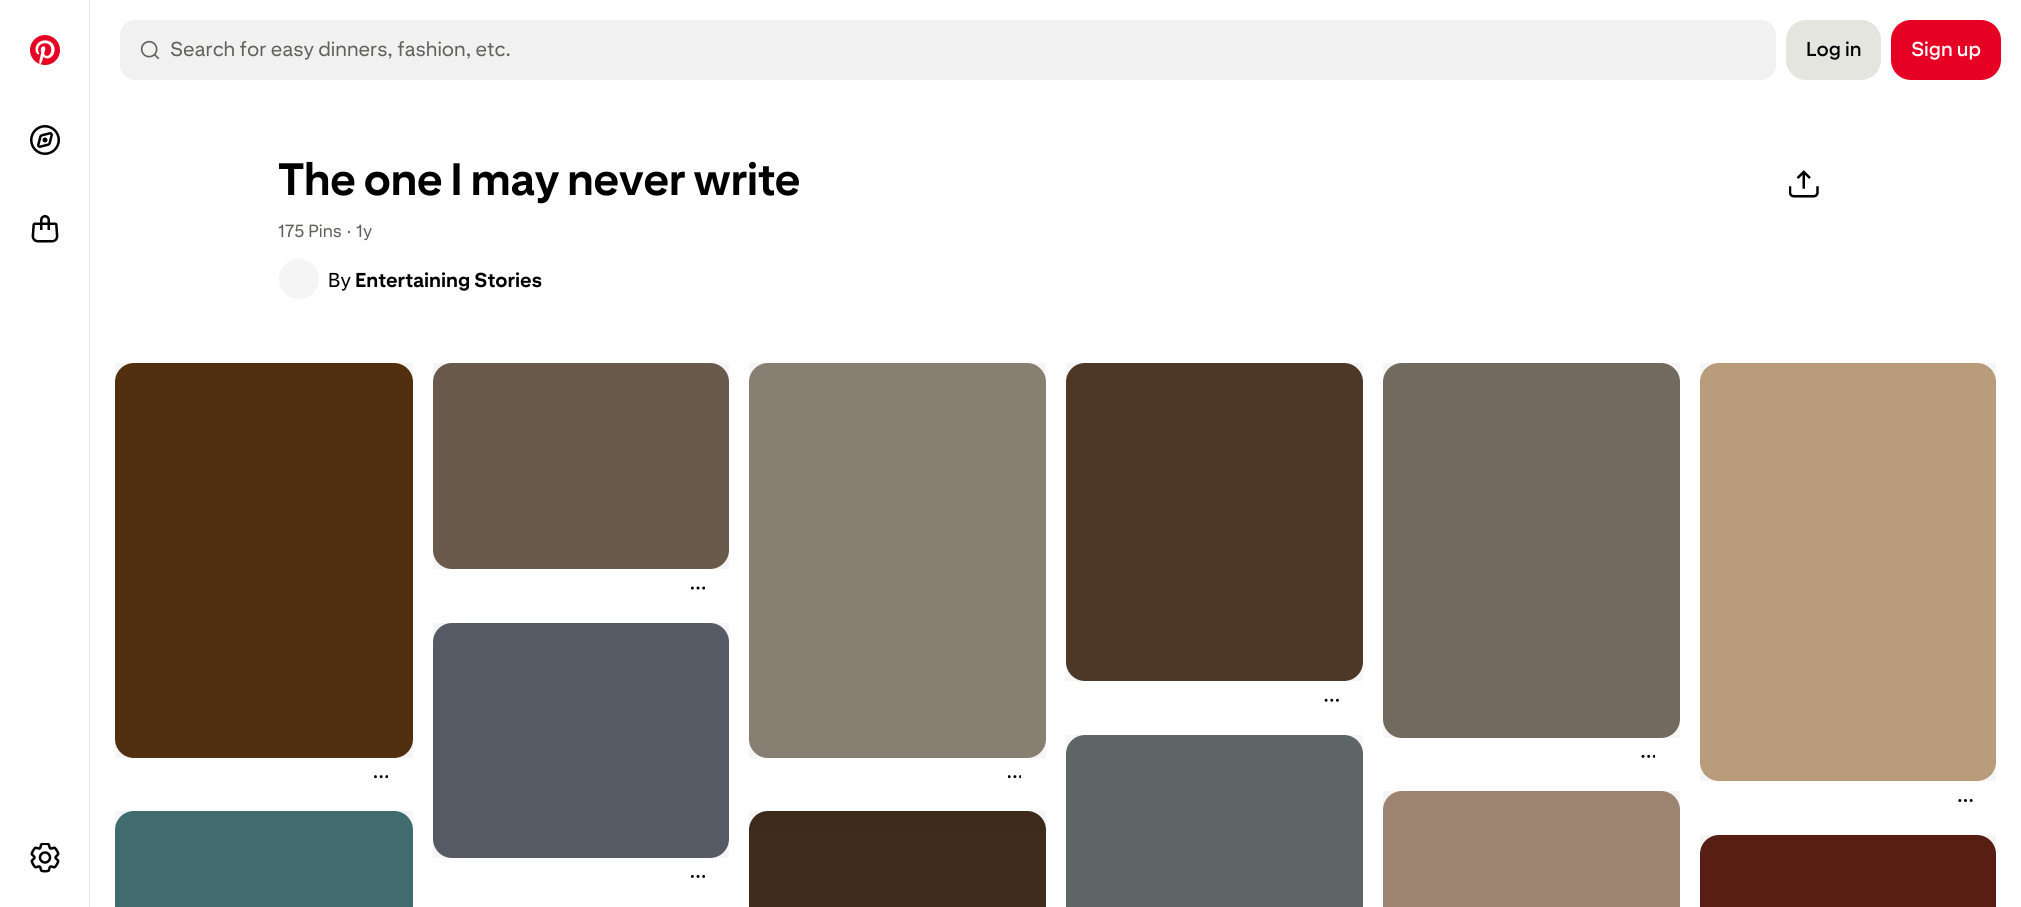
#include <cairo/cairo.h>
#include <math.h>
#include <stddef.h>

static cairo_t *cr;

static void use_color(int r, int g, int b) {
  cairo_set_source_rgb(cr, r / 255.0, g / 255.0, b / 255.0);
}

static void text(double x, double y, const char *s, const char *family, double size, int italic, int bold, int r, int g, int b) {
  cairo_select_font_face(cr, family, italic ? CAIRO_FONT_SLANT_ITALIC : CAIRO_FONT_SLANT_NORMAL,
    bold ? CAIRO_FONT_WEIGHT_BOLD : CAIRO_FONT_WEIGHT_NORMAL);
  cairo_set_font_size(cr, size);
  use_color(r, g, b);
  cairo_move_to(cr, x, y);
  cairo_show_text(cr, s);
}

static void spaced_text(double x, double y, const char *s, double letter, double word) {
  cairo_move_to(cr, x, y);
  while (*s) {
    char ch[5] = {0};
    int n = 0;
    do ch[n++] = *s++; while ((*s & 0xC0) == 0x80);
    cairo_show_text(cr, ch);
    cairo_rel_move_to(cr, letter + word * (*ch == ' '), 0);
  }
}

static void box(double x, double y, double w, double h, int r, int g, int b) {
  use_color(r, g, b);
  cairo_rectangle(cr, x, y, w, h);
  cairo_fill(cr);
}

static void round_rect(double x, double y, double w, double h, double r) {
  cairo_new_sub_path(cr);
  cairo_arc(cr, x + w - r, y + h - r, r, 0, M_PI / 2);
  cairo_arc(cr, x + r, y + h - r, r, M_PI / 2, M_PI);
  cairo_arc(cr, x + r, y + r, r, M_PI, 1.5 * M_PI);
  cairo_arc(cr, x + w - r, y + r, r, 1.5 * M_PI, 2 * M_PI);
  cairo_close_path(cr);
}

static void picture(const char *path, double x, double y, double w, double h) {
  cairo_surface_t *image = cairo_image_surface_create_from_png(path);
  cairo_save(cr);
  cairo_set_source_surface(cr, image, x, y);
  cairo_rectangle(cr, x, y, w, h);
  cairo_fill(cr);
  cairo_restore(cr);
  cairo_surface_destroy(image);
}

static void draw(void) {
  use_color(255, 255, 255);
  cairo_paint(cr);
  box(89, 0, 1, 907, 229, 229, 224);
  picture("img_01.png", 30, 35, 30, 30);
  picture("img_02.png", 30, 125, 30, 30);
  picture("img_03.png", 31, 215, 28, 28);
  picture("img_04.png", 30, 843, 30, 30);
  use_color(241, 241, 241);
  round_rect(120, 20, 1656, 60, 15);
  cairo_fill(cr);
  picture("img_05.png", 140, 40, 20, 20);
  use_color(229, 229, 224);
  round_rect(1786, 20, 95, 60, 20);
  cairo_fill(cr);
  use_color(230, 0, 35);
  round_rect(1891, 20, 110, 60, 20);
  cairo_fill(cr);
  use_color(245, 245, 245);
  cairo_arc(cr, 299, 279, 20, 0, 2 * M_PI);
  cairo_fill(cr);
  picture("img_06.png", 1789, 170, 30, 28);
  use_color(85, 49, 18);
  round_rect(115, 363, 298, 395, 19);
  cairo_fill(cr);
  cairo_set_source_rgba(cr, 0, 0, 0, 0.04);
  cairo_rectangle(cr, 115, 363, 298, 395);
  cairo_fill(cr);
  picture("img_07.png", 374, 775, 14, 4);
  use_color(109, 94, 79);
  round_rect(433, 363, 296, 206, 19);
  cairo_fill(cr);
  cairo_set_source_rgba(cr, 0, 0, 0, 0.04);
  cairo_rectangle(cr, 433, 363, 296, 206);
  cairo_fill(cr);
  picture("img_08.png", 690, 586, 15, 4);
  use_color(142, 131, 118);
  round_rect(749, 363, 297, 395, 19);
  cairo_fill(cr);
  cairo_set_source_rgba(cr, 0, 0, 0, 0.04);
  cairo_rectangle(cr, 749, 363, 297, 395);
  cairo_fill(cr);
  picture("img_09.png", 1008, 775, 13, 4);
  use_color(80, 58, 41);
  round_rect(1066, 363, 297, 318, 19);
  cairo_fill(cr);
  cairo_set_source_rgba(cr, 0, 0, 0, 0.04);
  cairo_rectangle(cr, 1066, 363, 297, 318);
  cairo_fill(cr);
  picture("img_10.png", 1324, 698, 15, 4);
  use_color(120, 110, 99);
  round_rect(1383, 363, 297, 375, 19);
  cairo_fill(cr);
  cairo_set_source_rgba(cr, 0, 0, 0, 0.04);
  cairo_rectangle(cr, 1383, 363, 297, 375);
  cairo_fill(cr);
  picture("img_11.png", 1641, 754, 14, 4);
  use_color(192, 162, 128);
  round_rect(1700, 363, 296, 418, 19);
  cairo_fill(cr);
  cairo_set_source_rgba(cr, 0, 0, 0, 0.04);
  cairo_rectangle(cr, 1700, 363, 296, 418);
  cairo_fill(cr);
  picture("img_12.png", 1958, 799, 15, 3);
  use_color(69, 111, 113);
  round_rect(115, 811, 298, 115, 19);
  cairo_fill(cr);
  cairo_set_source_rgba(cr, 0, 0, 0, 0.04);
  cairo_rectangle(cr, 115, 811, 298, 96);
  cairo_fill(cr);
  use_color(90, 94, 104);
  round_rect(433, 623, 296, 235, 19);
  cairo_fill(cr);
  cairo_set_source_rgba(cr, 0, 0, 0, 0.04);
  cairo_rectangle(cr, 433, 623, 296, 235);
  cairo_fill(cr);
  picture("img_13.png", 690, 875, 15, 3);
  use_color(63, 44, 28);
  round_rect(749, 811, 297, 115, 19);
  cairo_fill(cr);
  cairo_set_source_rgba(cr, 0, 0, 0, 0.04);
  cairo_rectangle(cr, 749, 811, 297, 19);
  cairo_fill(cr);
  use_color(98, 106, 105);
  round_rect(1066, 735, 297, 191, 19);
  cairo_fill(cr);
  cairo_set_source_rgba(cr, 0, 0, 0, 0.04);
  cairo_rectangle(cr, 1066, 735, 297, 172);
  cairo_fill(cr);
  use_color(163, 137, 118);
  round_rect(1383, 791, 297, 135, 19);
  cairo_fill(cr);
  cairo_set_source_rgba(cr, 0, 0, 0, 0.04);
  cairo_rectangle(cr, 1383, 791, 297, 116);
  cairo_fill(cr);
  use_color(92, 31, 21);
  round_rect(1700, 835, 296, 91, 19);
  cairo_fill(cr);
  cairo_set_source_rgba(cr, 0, 0, 0, 0.04);
  cairo_rectangle(cr, 1700, 835, 296, 72);
  cairo_fill(cr);
  text(170, 56, "Search for easy dinners, fashion, etc.", "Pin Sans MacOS", 20, 0, 0, 98, 98, 91);
  text(1806, 56, "Log in", "Pin Sans MacOS Medium", 20, 0, 0, 0, 0, 0);
  text(1911, 56, "Sign up", "Pin Sans MacOS Medium", 20, 0, 0, 255, 255, 255);
  cairo_select_font_face(cr, "Pin Sans MacOS", CAIRO_FONT_SLANT_NORMAL, CAIRO_FONT_WEIGHT_BOLD);
  cairo_set_font_size(cr, 45);
  use_color(0, 0, 0);
  spaced_text(278, 195, "The one I may never write", -0.6, 0);
  text(278, 237, "175 Pins", "Pin Sans MacOS", 17.5, 0, 0, 98, 98, 91);
  text(347, 237, "·", "Pin Sans MacOS", 17.5, 0, 0, 98, 98, 91);
  text(356, 237, "1y", "Pin Sans MacOS", 17.5, 0, 0, 98, 98, 91);
  text(328, 287, "By", "Pin Sans MacOS", 20, 0, 0, 0, 0, 0);
  text(355, 287, "Entertaining Stories", "Pin Sans MacOS", 20, 0, 1, 0, 0, 0);
}

int main(void) {
  cairo_surface_t *surface = cairo_image_surface_create(CAIRO_FORMAT_RGB24, 2021, 907);
  cr = cairo_create(surface);
  cairo_font_options_t *options = cairo_font_options_create();
  cairo_font_options_set_hint_metrics(options, CAIRO_HINT_METRICS_OFF);
  cairo_font_options_set_hint_style(options, CAIRO_HINT_STYLE_NONE);
  cairo_set_font_options(cr, options);
  cairo_set_miter_limit(cr, 4);
  draw();
  cairo_surface_write_to_png(surface, "out.png");
  cairo_font_options_destroy(options);
  cairo_destroy(cr);
  cairo_surface_destroy(surface);
  return 0;
}
